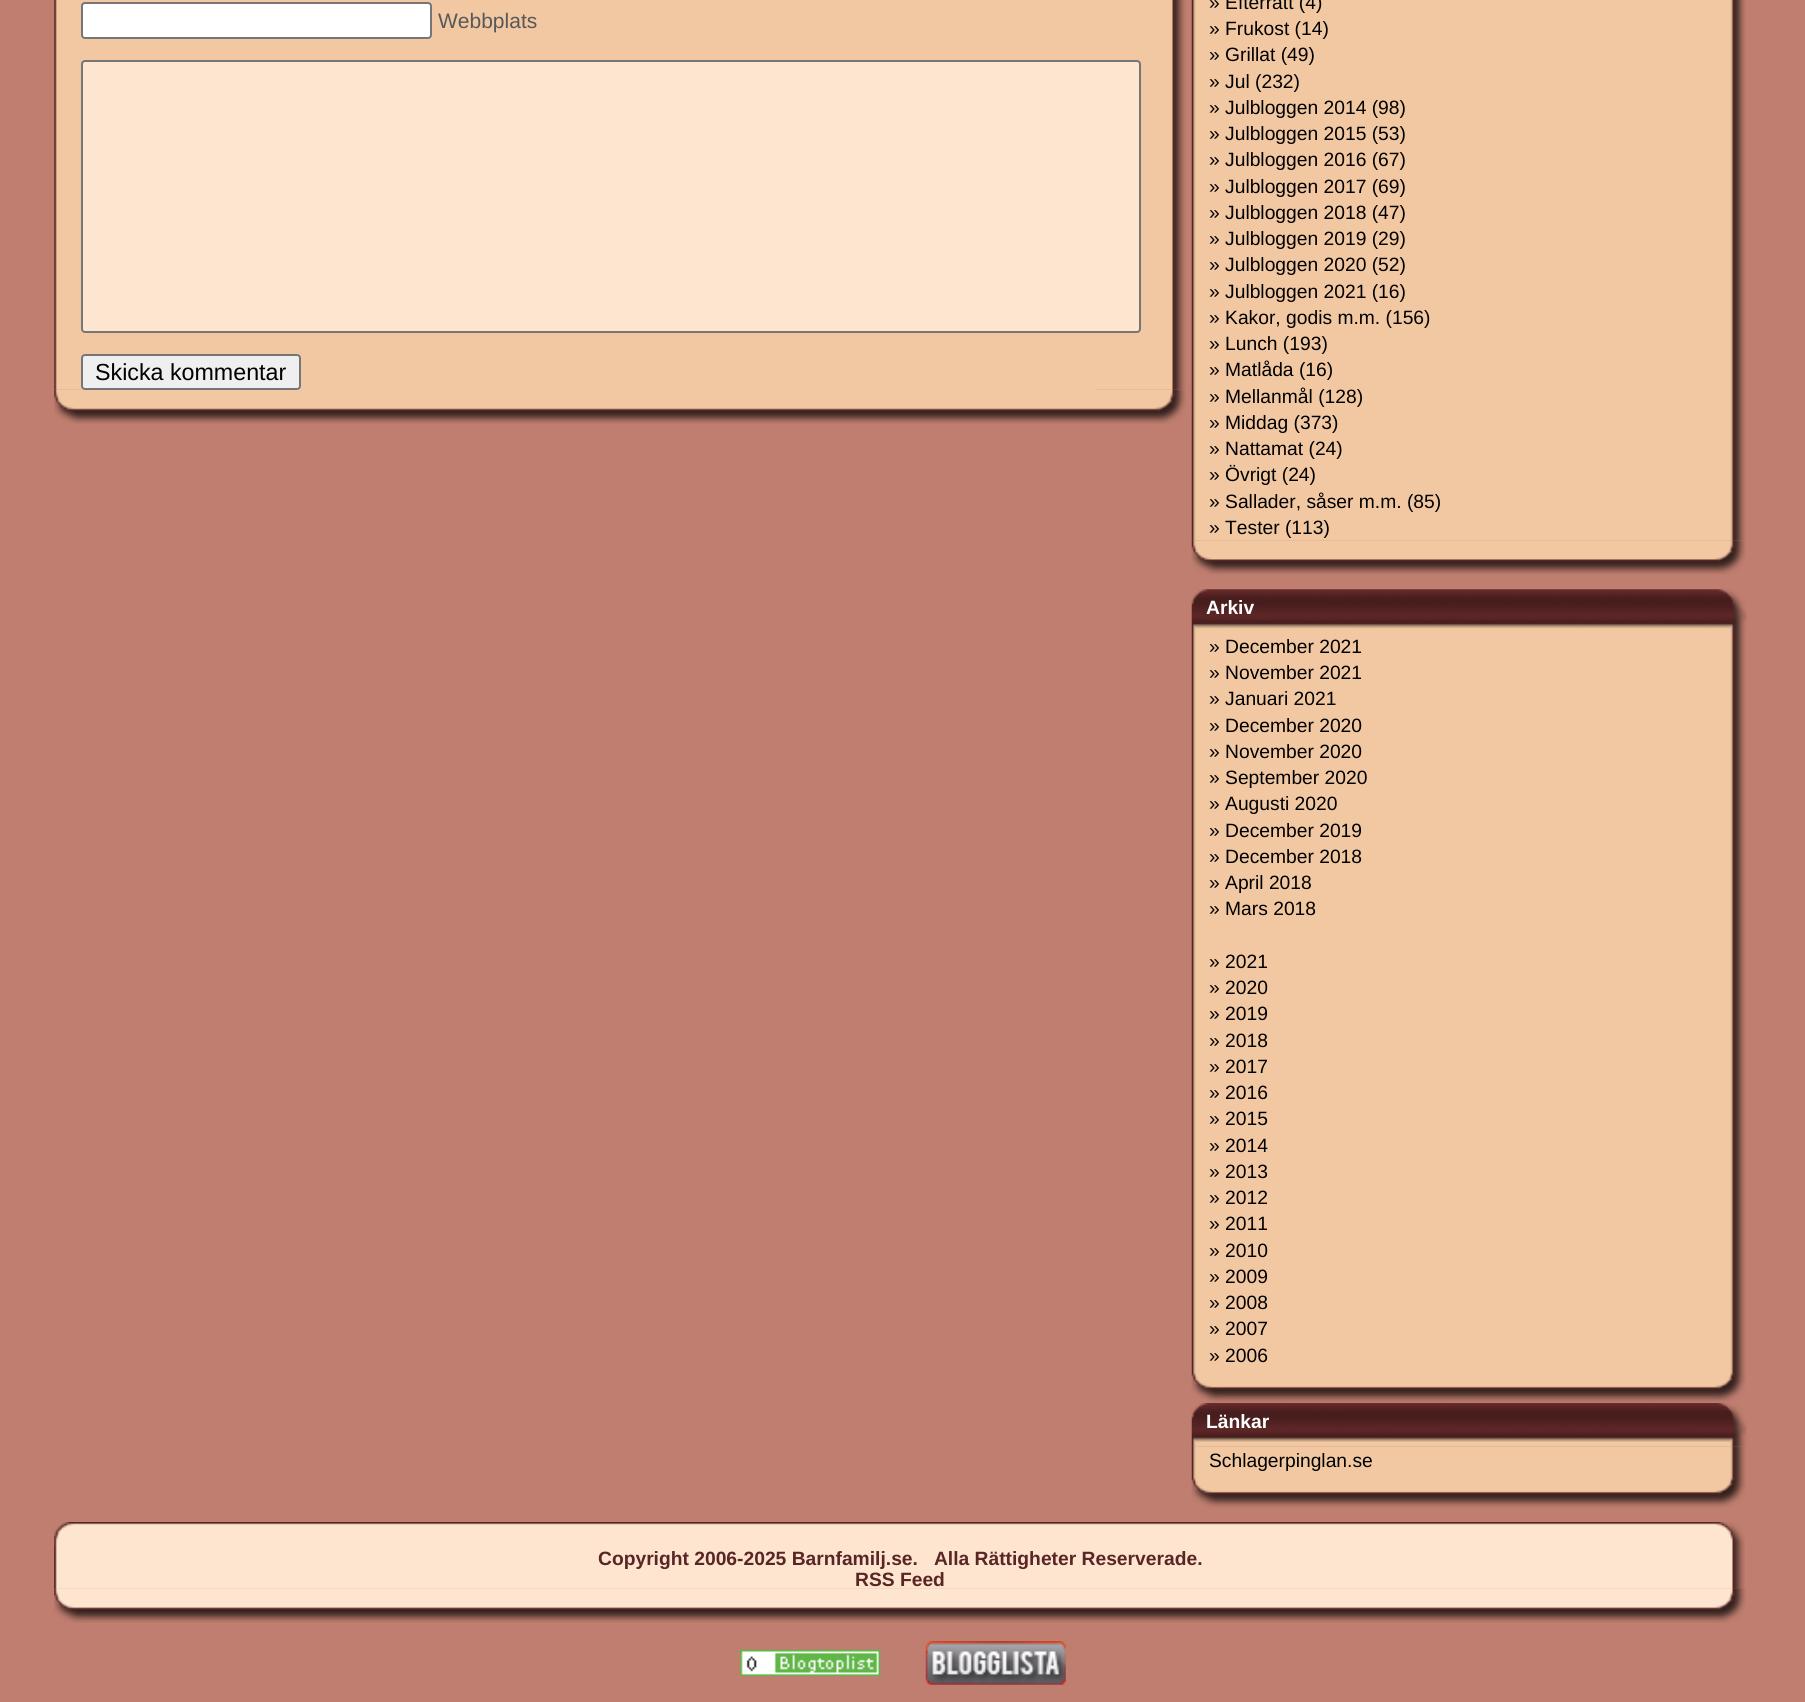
#include <cairo/cairo.h>
#include <math.h>
#include <stddef.h>

static cairo_t *cr;

static void use_color(int r, int g, int b) {
  cairo_set_source_rgb(cr, r / 255.0, g / 255.0, b / 255.0);
}

static void text(double x, double y, const char *s, const char *family, double size, int italic, int bold, int r, int g, int b) {
  cairo_select_font_face(cr, family, italic ? CAIRO_FONT_SLANT_ITALIC : CAIRO_FONT_SLANT_NORMAL,
    bold ? CAIRO_FONT_WEIGHT_BOLD : CAIRO_FONT_WEIGHT_NORMAL);
  cairo_set_font_size(cr, size);
  use_color(r, g, b);
  cairo_move_to(cr, x, y);
  cairo_show_text(cr, s);
}

static void box(double x, double y, double w, double h, int r, int g, int b) {
  use_color(r, g, b);
  cairo_rectangle(cr, x, y, w, h);
  cairo_fill(cr);
}

static void round_rect(double x, double y, double w, double h, double r) {
  cairo_new_sub_path(cr);
  cairo_arc(cr, x + w - r, y + h - r, r, 0, M_PI / 2);
  cairo_arc(cr, x + r, y + h - r, r, M_PI / 2, M_PI);
  cairo_arc(cr, x + r, y + r, r, M_PI, 1.5 * M_PI);
  cairo_arc(cr, x + w - r, y + r, r, 1.5 * M_PI, 2 * M_PI);
  cairo_close_path(cr);
}

static void picture(const char *path, double x, double y, double w, double h) {
  cairo_surface_t *image = cairo_image_surface_create_from_png(path);
  cairo_save(cr);
  cairo_set_source_surface(cr, image, x, y);
  cairo_rectangle(cr, x, y, w, h);
  cairo_fill(cr);
  cairo_restore(cr);
  cairo_surface_destroy(image);
}

static void draw(void) {
  use_color(191, 126, 111);
  cairo_paint(cr);
  picture("img_01.png", 54, 0, 1132, 390);
  box(81, 389, 1015, 1, 242, 200, 162);
  use_color(255, 255, 255);
  round_rect(82, 3, 349, 35, 3);
  cairo_fill_preserve(cr);
  use_color(118, 118, 118);
  cairo_stroke(cr);
  use_color(254, 229, 207);
  round_rect(82, 61, 1058, 271, 3);
  cairo_fill_preserve(cr);
  use_color(118, 118, 118);
  cairo_stroke(cr);
  picture("img_02.png", 54, 389, 1132, 35);
  use_color(239, 239, 239);
  round_rect(82, 355, 218, 34, 3);
  cairo_fill_preserve(cr);
  use_color(118, 118, 118);
  cairo_stroke(cr);
  picture("img_03.png", 1191, 0, 555, 541);
  picture("img_04.png", 1191, 540, 555, 35);
  picture("img_05.png", 1191, 589, 556, 44);
  picture("img_06.png", 1191, 633, 555, 735);
  picture("img_07.png", 1191, 1368, 555, 35);
  picture("img_08.png", 1191, 1403, 556, 44);
  picture("img_09.png", 1191, 1446, 555, 27);
  picture("img_07.png", 1191, 1473, 555, 35);
  picture("img_10.png", 54, 1522, 1691, 21);
  picture("img_11.png", 54, 1543, 1691, 46);
  picture("img_12.png", 54, 1546, 1689, 43);
  picture("img_13.png", 54, 1588, 1692, 35);
  picture("img_14.png", 740, 1649, 141, 27);
  picture("img_15.png", 925, 1641, 141, 44);
  text(438, 28, "Webbplats", "Liberation Sans", 21, 0, 0, 88, 88, 88);
  text(95, 380, "Skicka kommentar", "Liberation Sans", 23.25, 0, 0, 0, 0, 0);
  text(1209, 9, "» Efterrätt (4)", "Liberation Sans", 19.25, 0, 0, 0, 0, 0);
  text(1209, 35, "» Frukost (14)", "Liberation Sans", 19.25, 0, 0, 0, 0, 0);
  text(1209, 61, "» Grillat (49)", "Liberation Sans", 19.25, 0, 0, 0, 0, 0);
  text(1209, 88, "» Jul (232)", "Liberation Sans", 19.25, 0, 0, 0, 0, 0);
  text(1209, 114, "» Julbloggen 2014 (98)", "Liberation Sans", 19.25, 0, 0, 0, 0, 0);
  text(1209, 140, "» Julbloggen 2015 (53)", "Liberation Sans", 19.25, 0, 0, 0, 0, 0);
  text(1209, 166, "» Julbloggen 2016 (67)", "Liberation Sans", 19.25, 0, 0, 0, 0, 0);
  text(1209, 193, "» Julbloggen 2017 (69)", "Liberation Sans", 19.25, 0, 0, 0, 0, 0);
  text(1209, 219, "» Julbloggen 2018 (47)", "Liberation Sans", 19.25, 0, 0, 0, 0, 0);
  text(1209, 245, "» Julbloggen 2019 (29)", "Liberation Sans", 19.25, 0, 0, 0, 0, 0);
  text(1209, 271, "» Julbloggen 2020 (52)", "Liberation Sans", 19.25, 0, 0, 0, 0, 0);
  text(1209, 298, "» Julbloggen 2021 (16)", "Liberation Sans", 19.25, 0, 0, 0, 0, 0);
  text(1209, 324, "» Kakor, godis m.m. (156)", "Liberation Sans", 19.25, 0, 0, 0, 0, 0);
  text(1209, 350, "» Lunch (193)", "Liberation Sans", 19.25, 0, 0, 0, 0, 0);
  text(1209, 376, "» Matlåda (16)", "Liberation Sans", 19.25, 0, 0, 0, 0, 0);
  text(1209, 403, "» Mellanmål (128)", "Liberation Sans", 19.25, 0, 0, 0, 0, 0);
  text(1209, 429, "» Middag (373)", "Liberation Sans", 19.25, 0, 0, 0, 0, 0);
  text(1209, 455, "» Nattamat (24)", "Liberation Sans", 19.25, 0, 0, 0, 0, 0);
  text(1209, 481, "» Övrigt (24)", "Liberation Sans", 19.25, 0, 0, 0, 0, 0);
  text(1209, 508, "» Sallader, såser m.m. (85)", "Liberation Sans", 19.25, 0, 0, 0, 0, 0);
  text(1209, 534, "» Tester (113)", "Liberation Sans", 19.25, 0, 0, 0, 0, 0);
  text(1206, 614, "Arkiv", "Liberation Sans", 19.25, 0, 1, 255, 255, 255);
  text(1209, 653, "» December 2021", "Liberation Sans", 19.25, 0, 0, 0, 0, 0);
  text(1209, 679, "» November 2021", "Liberation Sans", 19.25, 0, 0, 0, 0, 0);
  text(1209, 705, "» Januari 2021", "Liberation Sans", 19.25, 0, 0, 0, 0, 0);
  text(1209, 732, "» December 2020", "Liberation Sans", 19.25, 0, 0, 0, 0, 0);
  text(1209, 758, "» November 2020", "Liberation Sans", 19.25, 0, 0, 0, 0, 0);
  text(1209, 784, "» September 2020", "Liberation Sans", 19.25, 0, 0, 0, 0, 0);
  text(1209, 810, "» Augusti 2020", "Liberation Sans", 19.25, 0, 0, 0, 0, 0);
  text(1209, 837, "» December 2019", "Liberation Sans", 19.25, 0, 0, 0, 0, 0);
  text(1209, 863, "» December 2018", "Liberation Sans", 19.25, 0, 0, 0, 0, 0);
  text(1209, 889, "» April 2018", "Liberation Sans", 19.25, 0, 0, 0, 0, 0);
  text(1209, 915, "» Mars 2018", "Liberation Sans", 19.25, 0, 0, 0, 0, 0);
  text(1209, 968, "» 2021", "Liberation Sans", 19.25, 0, 0, 0, 0, 0);
  text(1209, 994, "» 2020", "Liberation Sans", 19.25, 0, 0, 0, 0, 0);
  text(1209, 1020, "» 2019", "Liberation Sans", 19.25, 0, 0, 0, 0, 0);
  text(1209, 1047, "» 2018", "Liberation Sans", 19.25, 0, 0, 0, 0, 0);
  text(1209, 1073, "» 2017", "Liberation Sans", 19.25, 0, 0, 0, 0, 0);
  text(1209, 1099, "» 2016", "Liberation Sans", 19.25, 0, 0, 0, 0, 0);
  text(1209, 1125, "» 2015", "Liberation Sans", 19.25, 0, 0, 0, 0, 0);
  text(1209, 1152, "» 2014", "Liberation Sans", 19.25, 0, 0, 0, 0, 0);
  text(1209, 1178, "» 2013", "Liberation Sans", 19.25, 0, 0, 0, 0, 0);
  text(1209, 1204, "» 2012", "Liberation Sans", 19.25, 0, 0, 0, 0, 0);
  text(1209, 1230, "» 2011", "Liberation Sans", 19.25, 0, 0, 0, 0, 0);
  text(1209, 1257, "» 2010", "Liberation Sans", 19.25, 0, 0, 0, 0, 0);
  text(1209, 1283, "» 2009", "Liberation Sans", 19.25, 0, 0, 0, 0, 0);
  text(1209, 1309, "» 2008", "Liberation Sans", 19.25, 0, 0, 0, 0, 0);
  text(1209, 1335, "» 2007", "Liberation Sans", 19.25, 0, 0, 0, 0, 0);
  text(1209, 1362, "» 2006", "Liberation Sans", 19.25, 0, 0, 0, 0, 0);
  text(1206, 1428, "Länkar", "Liberation Sans", 19.25, 0, 1, 255, 255, 255);
  text(1209, 1467, "Schlagerpinglan.se", "Liberation Sans", 19.25, 0, 0, 0, 0, 0);
  text(598, 1565, "Copyright 2006-2025 Barnfamilj.se.   Alla Rättigheter Reserverade.", "Liberation Sans", 19.25, 0, 1, 89, 37, 37);
  text(855, 1586, "RSS Feed", "Liberation Sans", 19.25, 0, 1, 89, 37, 37);
}

int main(void) {
  cairo_surface_t *surface = cairo_image_surface_create(CAIRO_FORMAT_RGB24, 1805, 1702);
  cr = cairo_create(surface);
  cairo_font_options_t *options = cairo_font_options_create();
  cairo_font_options_set_hint_metrics(options, CAIRO_HINT_METRICS_OFF);
  cairo_font_options_set_hint_style(options, CAIRO_HINT_STYLE_NONE);
  cairo_set_font_options(cr, options);
  cairo_set_miter_limit(cr, 4);
  draw();
  cairo_surface_write_to_png(surface, "out.png");
  cairo_font_options_destroy(options);
  cairo_destroy(cr);
  cairo_surface_destroy(surface);
  return 0;
}
